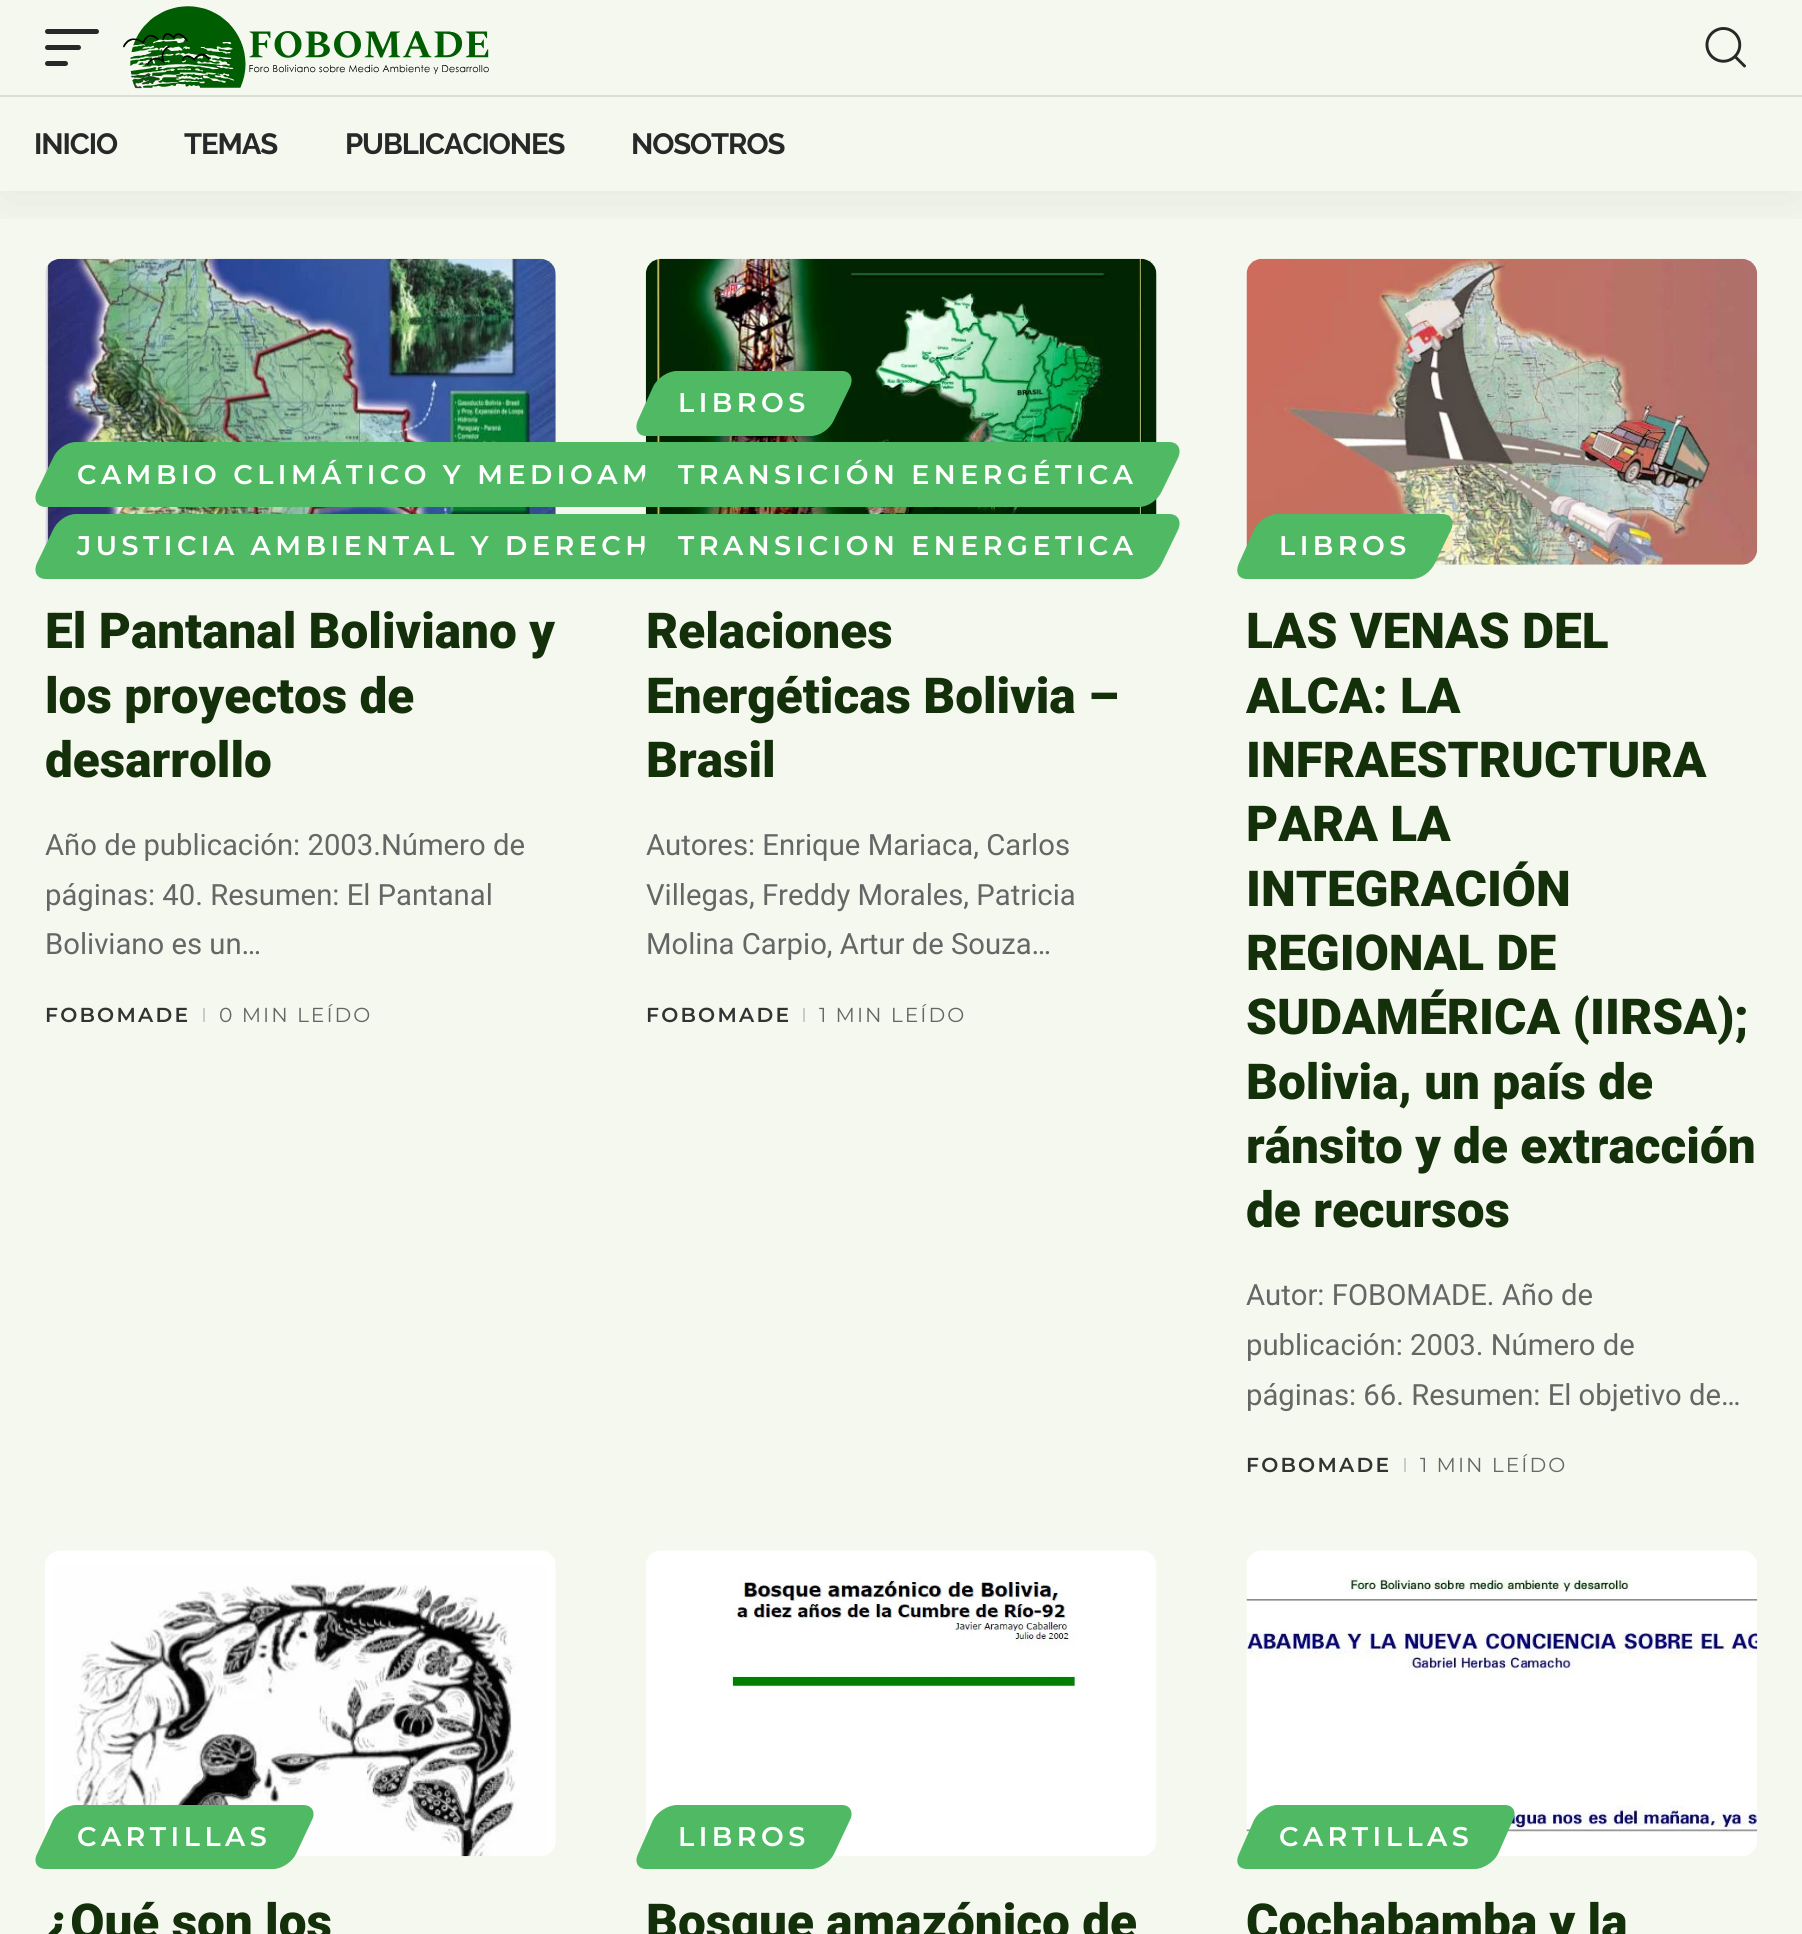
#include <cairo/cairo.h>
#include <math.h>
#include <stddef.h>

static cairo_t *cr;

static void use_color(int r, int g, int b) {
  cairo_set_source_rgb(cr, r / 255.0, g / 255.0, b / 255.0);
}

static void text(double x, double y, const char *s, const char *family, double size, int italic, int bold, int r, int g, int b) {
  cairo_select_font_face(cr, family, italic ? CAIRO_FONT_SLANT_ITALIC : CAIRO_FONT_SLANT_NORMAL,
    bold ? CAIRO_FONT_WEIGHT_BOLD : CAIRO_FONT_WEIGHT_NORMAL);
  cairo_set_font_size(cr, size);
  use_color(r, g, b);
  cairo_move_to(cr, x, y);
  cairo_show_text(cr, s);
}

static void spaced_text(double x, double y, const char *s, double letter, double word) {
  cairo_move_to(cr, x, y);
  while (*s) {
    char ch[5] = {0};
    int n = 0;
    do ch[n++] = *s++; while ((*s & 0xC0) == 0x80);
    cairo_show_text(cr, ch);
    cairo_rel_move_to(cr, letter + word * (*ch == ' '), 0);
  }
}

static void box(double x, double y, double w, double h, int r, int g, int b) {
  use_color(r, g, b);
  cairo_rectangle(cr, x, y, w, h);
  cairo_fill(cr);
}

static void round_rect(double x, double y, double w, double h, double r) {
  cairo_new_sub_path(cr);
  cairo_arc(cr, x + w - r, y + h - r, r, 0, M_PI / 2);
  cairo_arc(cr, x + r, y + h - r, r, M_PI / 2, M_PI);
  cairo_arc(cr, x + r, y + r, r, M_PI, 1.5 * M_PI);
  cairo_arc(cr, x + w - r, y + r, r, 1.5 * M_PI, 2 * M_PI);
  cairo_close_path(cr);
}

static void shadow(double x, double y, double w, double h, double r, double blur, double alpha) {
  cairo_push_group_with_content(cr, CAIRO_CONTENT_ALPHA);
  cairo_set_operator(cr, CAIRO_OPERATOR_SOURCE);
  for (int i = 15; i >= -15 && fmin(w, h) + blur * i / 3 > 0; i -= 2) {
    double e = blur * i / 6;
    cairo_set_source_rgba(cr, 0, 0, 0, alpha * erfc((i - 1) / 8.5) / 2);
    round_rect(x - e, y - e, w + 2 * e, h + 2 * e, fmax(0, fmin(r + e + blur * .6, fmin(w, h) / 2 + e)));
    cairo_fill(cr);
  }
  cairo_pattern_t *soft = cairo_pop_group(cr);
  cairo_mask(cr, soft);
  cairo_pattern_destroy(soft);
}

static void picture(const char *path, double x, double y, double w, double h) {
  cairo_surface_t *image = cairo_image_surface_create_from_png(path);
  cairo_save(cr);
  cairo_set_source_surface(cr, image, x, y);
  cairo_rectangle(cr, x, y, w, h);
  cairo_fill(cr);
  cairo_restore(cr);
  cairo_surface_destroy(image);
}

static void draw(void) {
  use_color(245, 248, 238);
  cairo_paint(cr);
  picture("img_03.png", 45, 258, 511, 289);
  picture("img_04.png", 645, 258, 512, 256);
  picture("img_05.png", 1246, 258, 512, 307);
  cairo_save(cr);
  cairo_rectangle(cr, 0, 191, 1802, 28);
  cairo_clip(cr);
  use_color(0, 0, 0);
  shadow(0, 9, 1802, 191, 0, 34, 0.07);
  cairo_restore(cr);
  use_color(40, 40, 40);
  round_rect(45, 29, 54, 5, 2.5);
  cairo_fill(cr);
  round_rect(45, 45, 36, 5, 2.5);
  cairo_fill(cr);
  round_rect(45, 61, 23, 5, 2.5);
  cairo_fill(cr);
  picture("img_01.png", 123, 6, 366, 83);
  picture("img_02.png", 1705, 27, 41, 41);
  box(0, 95, 1802, 2, 219, 222, 213);
  use_color(80, 185, 100);
  cairo_new_path(cr);
  cairo_move_to(cr, 76, 442);
  cairo_line_to(cr, 959, 442);
  cairo_curve_to(cr, 967, 442, 971, 449, 967, 458);
  cairo_line_to(cr, 951, 491);
  cairo_curve_to(cr, 947, 500, 937, 507, 928, 507);
  cairo_line_to(cr, 46, 507);
  cairo_curve_to(cr, 37, 507, 33, 500, 37, 491);
  cairo_line_to(cr, 53, 458);
  cairo_curve_to(cr, 57, 449, 67, 442, 76, 442);
  cairo_close_path(cr);
  cairo_fill(cr);
  cairo_new_path(cr);
  cairo_move_to(cr, 76, 514);
  cairo_line_to(cr, 732, 514);
  cairo_curve_to(cr, 741, 514, 745, 521, 741, 530);
  cairo_line_to(cr, 725, 563);
  cairo_curve_to(cr, 721, 572, 711, 579, 702, 579);
  cairo_line_to(cr, 46, 579);
  cairo_curve_to(cr, 37, 579, 33, 572, 37, 563);
  cairo_line_to(cr, 53, 530);
  cairo_curve_to(cr, 57, 521, 67, 514, 76, 514);
  cairo_close_path(cr);
  cairo_fill(cr);
  box(203, 1008, 2, 14, 202, 204, 197);
  use_color(80, 185, 100);
  cairo_new_path(cr);
  cairo_move_to(cr, 677, 371);
  cairo_line_to(cr, 842, 371);
  cairo_curve_to(cr, 850, 371, 854, 378, 850, 387);
  cairo_line_to(cr, 834, 420);
  cairo_curve_to(cr, 830, 429, 820, 436, 811, 436);
  cairo_line_to(cr, 646, 436);
  cairo_curve_to(cr, 638, 436, 634, 429, 638, 420);
  cairo_line_to(cr, 653, 387);
  cairo_curve_to(cr, 657, 378, 668, 371, 677, 371);
  cairo_close_path(cr);
  cairo_fill(cr);
  box(803, 1008, 2, 14, 202, 204, 197);
  use_color(80, 185, 100);
  cairo_new_path(cr);
  cairo_move_to(cr, 1277, 514);
  cairo_line_to(cr, 1442, 514);
  cairo_curve_to(cr, 1451, 514, 1455, 521, 1451, 530);
  cairo_line_to(cr, 1435, 563);
  cairo_curve_to(cr, 1431, 572, 1421, 579, 1412, 579);
  cairo_line_to(cr, 1247, 579);
  cairo_curve_to(cr, 1238, 579, 1235, 572, 1239, 563);
  cairo_line_to(cr, 1254, 530);
  cairo_curve_to(cr, 1258, 521, 1269, 514, 1277, 514);
  cairo_close_path(cr);
  cairo_fill(cr);
  box(1404, 1458, 2, 14, 202, 204, 197);
  picture("img_06.png", 45, 1550, 511, 307);
  use_color(80, 185, 100);
  cairo_new_path(cr);
  cairo_move_to(cr, 76, 1805);
  cairo_line_to(cr, 303, 1805);
  cairo_curve_to(cr, 312, 1805, 316, 1812, 312, 1820);
  cairo_line_to(cr, 296, 1854);
  cairo_curve_to(cr, 292, 1862, 282, 1869, 273, 1869);
  cairo_line_to(cr, 46, 1869);
  cairo_curve_to(cr, 37, 1869, 33, 1862, 37, 1854);
  cairo_line_to(cr, 53, 1820);
  cairo_curve_to(cr, 57, 1812, 67, 1805, 76, 1805);
  cairo_close_path(cr);
  cairo_fill(cr);
  picture("img_07.png", 646, 1550, 511, 306);
  cairo_new_path(cr);
  cairo_move_to(cr, 677, 1805);
  cairo_line_to(cr, 842, 1805);
  cairo_curve_to(cr, 850, 1805, 854, 1812, 850, 1820);
  cairo_line_to(cr, 834, 1854);
  cairo_curve_to(cr, 830, 1862, 820, 1869, 811, 1869);
  cairo_line_to(cr, 646, 1869);
  cairo_curve_to(cr, 638, 1869, 634, 1862, 638, 1854);
  cairo_line_to(cr, 653, 1820);
  cairo_curve_to(cr, 657, 1812, 668, 1805, 677, 1805);
  cairo_close_path(cr);
  cairo_fill(cr);
  picture("img_08.png", 1246, 1550, 512, 306);
  cairo_new_path(cr);
  cairo_move_to(cr, 1277, 1805);
  cairo_line_to(cr, 1505, 1805);
  cairo_curve_to(cr, 1513, 1805, 1517, 1812, 1513, 1820);
  cairo_line_to(cr, 1498, 1854);
  cairo_curve_to(cr, 1494, 1862, 1483, 1869, 1475, 1869);
  cairo_line_to(cr, 1247, 1869);
  cairo_curve_to(cr, 1238, 1869, 1235, 1862, 1239, 1854);
  cairo_line_to(cr, 1254, 1820);
  cairo_curve_to(cr, 1258, 1812, 1269, 1805, 1277, 1805);
  cairo_close_path(cr);
  cairo_fill(cr);
  cairo_select_font_face(cr, "Raleway", CAIRO_FONT_SLANT_NORMAL, CAIRO_FONT_WEIGHT_BOLD);
  cairo_set_font_size(cr, 29.25);
  use_color(40, 40, 40);
  spaced_text(34, 154, "INICIO", -1.1, 0);
  spaced_text(184, 154, "TEMAS", -1.1, 0);
  spaced_text(345, 154, "PUBLICACIONES", -1.1, 0);
  spaced_text(631, 154, "NOSOTROS", -1.1, 0);
  cairo_select_font_face(cr, "Montserrat SemiBold", CAIRO_FONT_SLANT_NORMAL, CAIRO_FONT_WEIGHT_NORMAL);
  cairo_set_font_size(cr, 27);
  use_color(255, 255, 255);
  spaced_text(77, 484, "CAMBIO CLIMÁTICO Y MEDIOAM", 4.5, 0);
  spaced_text(77, 555, "JUSTICIA AMBIENTAL Y DERECH", 4.5, 0);
  text(45, 648, "El Pantanal Boliviano y", "Roboto Black", 49.5, 0, 0, 20, 48, 11);
  text(45, 713, "los proyectos de", "Roboto Black", 49.5, 0, 0, 20, 48, 11);
  text(45, 777, "desarrollo", "Roboto Black", 49.5, 0, 0, 20, 48, 11);
  text(45, 855, "Año de publicación: 2003.Número de", "Roboto", 29.25, 0, 0, 102, 102, 102);
  text(45, 905, "páginas: 40. Resumen: El Pantanal", "Roboto", 29.25, 0, 0, 102, 102, 102);
  text(45, 954, "Boliviano es un…", "Roboto", 29.25, 0, 0, 102, 102, 102);
  cairo_select_font_face(cr, "Montserrat SemiBold", CAIRO_FONT_SLANT_NORMAL, CAIRO_FONT_WEIGHT_NORMAL);
  cairo_set_font_size(cr, 20.25);
  use_color(51, 51, 51);
  spaced_text(45, 1022, "FOBOMADE", 2.25, 0);
  cairo_select_font_face(cr, "Montserrat", CAIRO_FONT_SLANT_NORMAL, CAIRO_FONT_WEIGHT_NORMAL);
  use_color(102, 102, 102);
  spaced_text(219, 1022, "0 MIN LEÍDO", 2, 0);
  cairo_select_font_face(cr, "Montserrat SemiBold", CAIRO_FONT_SLANT_NORMAL, CAIRO_FONT_WEIGHT_NORMAL);
  cairo_set_font_size(cr, 27);
  use_color(255, 255, 255);
  spaced_text(678, 412, "LIBROS", 4.5, 0);
  use_color(80, 185, 100);
  cairo_new_path(cr);
  cairo_move_to(cr, 677, 442);
  cairo_line_to(cr, 1169, 442);
  cairo_curve_to(cr, 1178, 442, 1182, 449, 1178, 458);
  cairo_line_to(cr, 1162, 491);
  cairo_curve_to(cr, 1158, 500, 1148, 507, 1139, 507);
  cairo_line_to(cr, 646, 507);
  cairo_curve_to(cr, 638, 507, 634, 500, 638, 491);
  cairo_line_to(cr, 653, 458);
  cairo_curve_to(cr, 657, 449, 668, 442, 677, 442);
  cairo_close_path(cr);
  cairo_fill(cr);
  use_color(255, 255, 255);
  spaced_text(678, 484, "TRANSICIÓN ENERGÉTICA", 4.5, 0);
  use_color(80, 185, 100);
  cairo_new_path(cr);
  cairo_move_to(cr, 677, 514);
  cairo_line_to(cr, 1169, 514);
  cairo_curve_to(cr, 1178, 514, 1182, 521, 1178, 530);
  cairo_line_to(cr, 1162, 563);
  cairo_curve_to(cr, 1158, 572, 1148, 579, 1139, 579);
  cairo_line_to(cr, 646, 579);
  cairo_curve_to(cr, 638, 579, 634, 572, 638, 563);
  cairo_line_to(cr, 653, 530);
  cairo_curve_to(cr, 657, 521, 668, 514, 677, 514);
  cairo_close_path(cr);
  cairo_fill(cr);
  use_color(255, 255, 255);
  spaced_text(678, 555, "TRANSICION ENERGETICA", 4.5, 0);
  text(646, 648, "Relaciones", "Roboto Black", 49.5, 0, 0, 20, 48, 11);
  text(646, 713, "Energéticas Bolivia –", "Roboto Black", 49.5, 0, 0, 20, 48, 11);
  text(646, 777, "Brasil", "Roboto Black", 49.5, 0, 0, 20, 48, 11);
  text(646, 855, "Autores: Enrique Mariaca, Carlos", "Roboto", 29.25, 0, 0, 102, 102, 102);
  text(646, 905, "Villegas, Freddy Morales, Patricia", "Roboto", 29.25, 0, 0, 102, 102, 102);
  text(646, 954, "Molina Carpio, Artur de Souza…", "Roboto", 29.25, 0, 0, 102, 102, 102);
  cairo_select_font_face(cr, "Montserrat SemiBold", CAIRO_FONT_SLANT_NORMAL, CAIRO_FONT_WEIGHT_NORMAL);
  cairo_set_font_size(cr, 20.25);
  use_color(51, 51, 51);
  spaced_text(646, 1022, "FOBOMADE", 2.25, 0);
  cairo_select_font_face(cr, "Montserrat", CAIRO_FONT_SLANT_NORMAL, CAIRO_FONT_WEIGHT_NORMAL);
  use_color(102, 102, 102);
  spaced_text(819, 1022, "1 MIN LEÍDO", 2, 0);
  cairo_select_font_face(cr, "Montserrat SemiBold", CAIRO_FONT_SLANT_NORMAL, CAIRO_FONT_WEIGHT_NORMAL);
  cairo_set_font_size(cr, 27);
  use_color(255, 255, 255);
  spaced_text(1279, 555, "LIBROS", 4.5, 0);
  text(1246, 648, "LAS VENAS DEL", "Roboto Black", 49.5, 0, 0, 20, 48, 11);
  text(1246, 713, "ALCA: LA", "Roboto Black", 49.5, 0, 0, 20, 48, 11);
  text(1246, 777, "INFRAESTRUCTURA", "Roboto Black", 49.5, 0, 0, 20, 48, 11);
  text(1246, 841, "PARA LA", "Roboto Black", 49.5, 0, 0, 20, 48, 11);
  text(1246, 906, "INTEGRACIÓN", "Roboto Black", 49.5, 0, 0, 20, 48, 11);
  text(1246, 970, "REGIONAL DE", "Roboto Black", 49.5, 0, 0, 20, 48, 11);
  text(1246, 1034, "SUDAMÉRICA (IIRSA);", "Roboto Black", 49.5, 0, 0, 20, 48, 11);
  text(1246, 1099, "Bolivia, un país de", "Roboto Black", 49.5, 0, 0, 20, 48, 11);
  text(1246, 1163, "ránsito y de extracción", "Roboto Black", 49.5, 0, 0, 20, 48, 11);
  text(1246, 1227, "de recursos", "Roboto Black", 49.5, 0, 0, 20, 48, 11);
  text(1246, 1305, "Autor: FOBOMADE. Año de", "Roboto", 29.25, 0, 0, 102, 102, 102);
  text(1246, 1355, "publicación: 2003. Número de", "Roboto", 29.25, 0, 0, 102, 102, 102);
  text(1246, 1405, "páginas: 66. Resumen: El objetivo de…", "Roboto", 29.25, 0, 0, 102, 102, 102);
  cairo_select_font_face(cr, "Montserrat SemiBold", CAIRO_FONT_SLANT_NORMAL, CAIRO_FONT_WEIGHT_NORMAL);
  cairo_set_font_size(cr, 20.25);
  use_color(51, 51, 51);
  spaced_text(1246, 1472, "FOBOMADE", 2.25, 0);
  cairo_select_font_face(cr, "Montserrat", CAIRO_FONT_SLANT_NORMAL, CAIRO_FONT_WEIGHT_NORMAL);
  use_color(102, 102, 102);
  spaced_text(1420, 1472, "1 MIN LEÍDO", 2, 0);
  cairo_select_font_face(cr, "Montserrat SemiBold", CAIRO_FONT_SLANT_NORMAL, CAIRO_FONT_WEIGHT_NORMAL);
  cairo_set_font_size(cr, 27);
  use_color(255, 255, 255);
  spaced_text(77, 1846, "CARTILLAS", 4.5, 0);
  text(45, 1939, "¿Qué son los", "Roboto Black", 49.5, 0, 0, 20, 48, 11);
  cairo_select_font_face(cr, "Montserrat SemiBold", CAIRO_FONT_SLANT_NORMAL, CAIRO_FONT_WEIGHT_NORMAL);
  cairo_set_font_size(cr, 27);
  use_color(255, 255, 255);
  spaced_text(678, 1846, "LIBROS", 4.5, 0);
  text(646, 1939, "Bosque amazónico de", "Roboto Black", 49.5, 0, 0, 20, 48, 11);
  cairo_select_font_face(cr, "Montserrat SemiBold", CAIRO_FONT_SLANT_NORMAL, CAIRO_FONT_WEIGHT_NORMAL);
  cairo_set_font_size(cr, 27);
  use_color(255, 255, 255);
  spaced_text(1279, 1846, "CARTILLAS", 4.5, 0);
  text(1246, 1939, "Cochabamba y la", "Roboto Black", 49.5, 0, 0, 20, 48, 11);
}

int main(void) {
  cairo_surface_t *surface = cairo_image_surface_create(CAIRO_FORMAT_RGB24, 1802, 1934);
  cr = cairo_create(surface);
  cairo_font_options_t *options = cairo_font_options_create();
  cairo_font_options_set_hint_metrics(options, CAIRO_HINT_METRICS_OFF);
  cairo_font_options_set_hint_style(options, CAIRO_HINT_STYLE_NONE);
  cairo_set_font_options(cr, options);
  cairo_set_miter_limit(cr, 4);
  draw();
  cairo_surface_write_to_png(surface, "out.png");
  cairo_font_options_destroy(options);
  cairo_destroy(cr);
  cairo_surface_destroy(surface);
  return 0;
}
